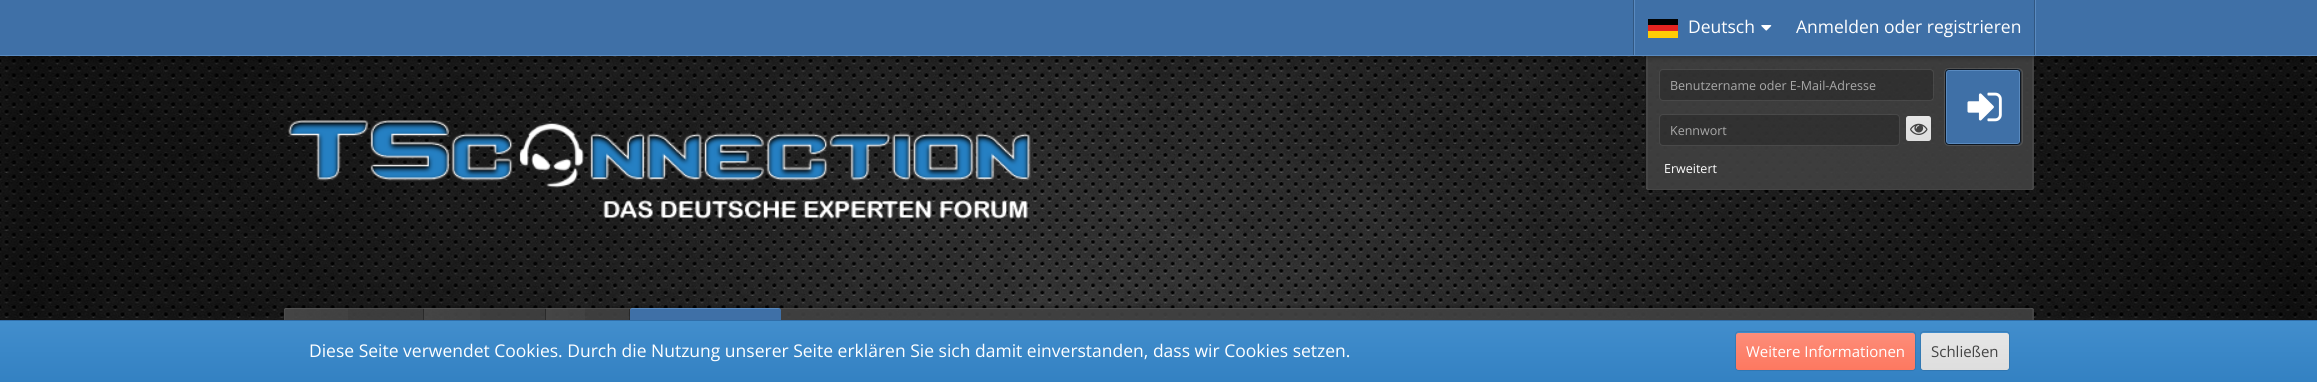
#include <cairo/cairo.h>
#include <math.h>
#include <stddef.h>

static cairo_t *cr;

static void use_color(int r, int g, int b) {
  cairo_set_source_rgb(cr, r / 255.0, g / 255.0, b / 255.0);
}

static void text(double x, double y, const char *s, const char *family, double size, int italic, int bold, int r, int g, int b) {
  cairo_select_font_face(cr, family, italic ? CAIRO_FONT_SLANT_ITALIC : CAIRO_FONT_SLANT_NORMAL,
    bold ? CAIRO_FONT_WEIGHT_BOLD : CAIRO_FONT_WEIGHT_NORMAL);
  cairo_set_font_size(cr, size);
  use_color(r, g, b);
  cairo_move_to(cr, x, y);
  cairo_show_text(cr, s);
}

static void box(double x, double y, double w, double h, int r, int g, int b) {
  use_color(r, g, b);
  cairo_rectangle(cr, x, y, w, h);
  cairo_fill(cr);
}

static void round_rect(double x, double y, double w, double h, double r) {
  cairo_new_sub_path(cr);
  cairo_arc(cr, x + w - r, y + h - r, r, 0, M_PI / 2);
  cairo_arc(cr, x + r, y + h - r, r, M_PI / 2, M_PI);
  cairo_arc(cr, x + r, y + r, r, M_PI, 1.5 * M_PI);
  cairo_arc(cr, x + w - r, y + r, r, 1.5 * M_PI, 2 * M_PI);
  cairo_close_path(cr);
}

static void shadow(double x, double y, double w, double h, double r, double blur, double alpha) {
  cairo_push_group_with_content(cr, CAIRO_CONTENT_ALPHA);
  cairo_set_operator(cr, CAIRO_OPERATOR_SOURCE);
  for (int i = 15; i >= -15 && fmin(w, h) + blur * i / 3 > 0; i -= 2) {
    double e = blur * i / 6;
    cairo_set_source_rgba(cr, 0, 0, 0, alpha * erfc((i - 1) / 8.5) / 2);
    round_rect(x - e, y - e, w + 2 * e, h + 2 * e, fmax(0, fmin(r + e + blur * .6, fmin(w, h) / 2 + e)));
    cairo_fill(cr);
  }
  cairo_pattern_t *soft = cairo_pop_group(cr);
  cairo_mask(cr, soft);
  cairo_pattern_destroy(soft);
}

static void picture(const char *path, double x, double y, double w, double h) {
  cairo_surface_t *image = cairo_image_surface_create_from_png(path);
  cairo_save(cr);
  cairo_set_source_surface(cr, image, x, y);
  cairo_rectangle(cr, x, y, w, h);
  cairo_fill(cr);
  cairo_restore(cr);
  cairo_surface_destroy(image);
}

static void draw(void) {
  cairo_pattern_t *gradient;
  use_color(255, 255, 255);
  cairo_paint(cr);
  picture("img_01.png", 0, 56, 2317, 264);
  cairo_new_path(cr);
  cairo_move_to(cr, 1645.5, 55.5);
  cairo_line_to(cr, 2034.5, 55.5);
  cairo_line_to(cr, 2034.5, 187);
  cairo_curve_to(cr, 2034.5, 189, 2033, 190.5, 2031, 190.5);
  cairo_line_to(cr, 1649, 190.5);
  cairo_curve_to(cr, 1647, 190.5, 1645.5, 189, 1645.5, 187);
  cairo_close_path(cr);
  cairo_set_source_rgba(cr, 0, 0, 0, 0.1);
  cairo_set_line_width(cr, 1);
  cairo_stroke(cr);
  cairo_set_source_rgba(cr, 0.255, 0.255, 0.255, 0.7);
  cairo_new_path(cr);
  cairo_move_to(cr, 1646, 56);
  cairo_line_to(cr, 2034, 56);
  cairo_line_to(cr, 2034, 187.5);
  cairo_curve_to(cr, 2034, 189, 2033, 190, 2031.5, 190);
  cairo_line_to(cr, 1648.5, 190);
  cairo_curve_to(cr, 1647, 190, 1646, 189, 1646, 187.5);
  cairo_close_path(cr);
  cairo_fill(cr);
  cairo_new_path(cr);
  cairo_move_to(cr, 1646, 56);
  cairo_line_to(cr, 1646, 188);
  cairo_curve_to(cr, 1646, 189, 1647, 190, 1648, 190);
  cairo_line_to(cr, 2032, 190);
  cairo_curve_to(cr, 2033, 190, 2034, 189, 2034, 188);
  cairo_line_to(cr, 2034, 56);
  cairo_close_path(cr);
  cairo_fill(cr);
  cairo_set_source_rgba(cr, 1, 1, 1, 0.05);
  cairo_new_path(cr);
  cairo_move_to(cr, 1646, 56);
  cairo_line_to(cr, 1646, 188);
  cairo_curve_to(cr, 1646, 189, 1647, 190, 1648, 190);
  cairo_line_to(cr, 1650, 190);
  cairo_curve_to(cr, 1649, 190, 1648, 189, 1648, 188);
  cairo_line_to(cr, 1648, 56);
  cairo_close_path(cr);
  cairo_fill(cr);
  cairo_new_path(cr);
  cairo_move_to(cr, 2030, 190);
  cairo_line_to(cr, 2032, 190);
  cairo_curve_to(cr, 2033, 190, 2034, 189, 2034, 188);
  cairo_line_to(cr, 2034, 56);
  cairo_line_to(cr, 2032, 56);
  cairo_line_to(cr, 2032, 188);
  cairo_curve_to(cr, 2032, 189, 2031, 190, 2030, 190);
  cairo_close_path(cr);
  cairo_fill(cr);
  use_color(0, 0, 0);
  shadow(0, 0, 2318, 56, 0, 3, 0.5);
  box(0, 0, 2317, 55, 63, 112, 167);
  box(0, 55, 2317, 1, 89, 138, 192);
  box(2035, 0, 1, 55, 89, 138, 192);
  box(2034, 0, 1, 55, 49, 87, 130);
  box(1633, 0, 1, 55, 49, 87, 130);
  box(1634, 0, 1, 55, 89, 138, 192);
  box(1648, 19, 30, 6, 1, 2, 2);
  box(1648, 31, 30, 7, 255, 204, 4);
  box(1648, 25, 30, 6, 229, 36, 32);
  picture("img_02.png", 1761, 25, 11, 6);
  picture("img_03.png", 287, 120, 744, 99);
  cairo_set_source_rgba(cr, 1, 1, 1, 0.05);
  cairo_new_path(cr);
  cairo_move_to(cr, 1646, 186);
  cairo_line_to(cr, 1646, 189);
  cairo_line_to(cr, 1648, 190);
  cairo_line_to(cr, 2032, 190);
  cairo_curve_to(cr, 2034, 190, 2034, 188, 2034, 186);
  cairo_curve_to(cr, 2034, 188, 2033, 189, 2031, 189);
  cairo_line_to(cr, 1649, 189);
  cairo_curve_to(cr, 1647, 189, 1646, 188, 1646, 186);
  cairo_close_path(cr);
  cairo_fill(cr);
  cairo_set_source_rgba(cr, 0, 0, 0, 0.2);
  round_rect(1659, 69, 275, 32, 4);
  cairo_fill(cr);
  round_rect(1659.5, 69.5, 274, 31, 3.5);
  cairo_set_source_rgba(cr, 1, 1, 1, 0.12);
  cairo_stroke(cr);
  cairo_set_source_rgba(cr, 0, 0, 0, 0.2);
  round_rect(1659, 114, 241, 32, 4);
  cairo_fill(cr);
  round_rect(1659.5, 114.5, 240, 31, 3.5);
  cairo_set_source_rgba(cr, 1, 1, 1, 0.12);
  cairo_stroke(cr);
  gradient = cairo_pattern_create_linear(1919, 116, 1919, 141);
  cairo_pattern_add_color_stop_rgba(gradient, 0, 0.902, 0.902, 0.902, 1);
  cairo_pattern_add_color_stop_rgba(gradient, 1, 0.871, 0.871, 0.871, 1);
  cairo_set_source(cr, gradient);
  cairo_pattern_destroy(gradient);
  round_rect(1906, 116, 25, 25, 2.5);
  cairo_fill(cr);
  picture("img_04.png", 1910, 123, 18, 12);
  round_rect(1944.5, 68.5, 78, 77, 4.5);
  cairo_set_source_rgba(cr, 1, 1, 1, 0.12);
  cairo_stroke(cr);
  use_color(63, 112, 167);
  round_rect(1945, 69, 76, 76, 4);
  cairo_fill(cr);
  round_rect(1946.5, 70.5, 73, 73, 2);
  use_color(89, 138, 192);
  cairo_stroke(cr);
  round_rect(1945.5, 69.5, 75, 75, 3.5);
  cairo_set_source_rgba(cr, 0, 0, 0, 0.8);
  cairo_stroke(cr);
  picture("img_05.png", 1967, 92, 35, 30);
  cairo_save(cr);
  cairo_set_fill_rule(cr, CAIRO_FILL_RULE_EVEN_ODD);
  cairo_new_path(cr);
  cairo_move_to(cr, 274, 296);
  cairo_line_to(cr, 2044, 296);
  cairo_line_to(cr, 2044, 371);
  cairo_line_to(cr, 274, 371);
  cairo_close_path(cr);
  cairo_move_to(cr, 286.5, 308);
  cairo_line_to(cr, 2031.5, 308);
  cairo_curve_to(cr, 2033, 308, 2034, 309, 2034, 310.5);
  cairo_line_to(cr, 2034, 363);
  cairo_line_to(cr, 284, 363);
  cairo_line_to(cr, 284, 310.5);
  cairo_curve_to(cr, 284, 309, 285, 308, 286.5, 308);
  cairo_close_path(cr);
  cairo_clip(cr);
  use_color(0, 0, 0);
  shadow(284, 306, 1750, 55, 2.5, 3, 0.15);
  cairo_restore(cr);
  cairo_set_source_rgba(cr, 0, 0, 0, 0.1);
  cairo_new_path(cr);
  cairo_move_to(cr, 286, 306);
  cairo_curve_to(cr, 285, 306, 284, 307, 284, 309);
  cairo_curve_to(cr, 284, 308, 285, 308, 286, 308);
  cairo_line_to(cr, 2031, 308);
  cairo_curve_to(cr, 2033, 308, 2034, 309, 2034, 310);
  cairo_line_to(cr, 2034, 361);
  cairo_line_to(cr, 2034, 308);
  cairo_curve_to(cr, 2034, 307, 2033, 306, 2032, 306);
  cairo_close_path(cr);
  cairo_fill(cr);
  cairo_set_source_rgba(cr, 0.255, 0.255, 0.255, 0.7);
  cairo_new_path(cr);
  cairo_move_to(cr, 286.5, 308);
  cairo_line_to(cr, 2031.5, 308);
  cairo_curve_to(cr, 2033, 308, 2034, 309, 2034, 310.5);
  cairo_line_to(cr, 2034, 363);
  cairo_line_to(cr, 284, 363);
  cairo_line_to(cr, 284, 310.5);
  cairo_curve_to(cr, 284, 309, 285, 308, 286.5, 308);
  cairo_close_path(cr);
  cairo_fill(cr);
  cairo_new_path(cr);
  cairo_move_to(cr, 286, 308);
  cairo_curve_to(cr, 285, 308, 284, 309, 284, 310);
  cairo_line_to(cr, 284, 363);
  cairo_line_to(cr, 2034, 363);
  cairo_line_to(cr, 2034, 310);
  cairo_curve_to(cr, 2034, 309, 2033, 308, 2032, 308);
  cairo_close_path(cr);
  cairo_fill(cr);
  cairo_set_source_rgba(cr, 1, 1, 1, 0.05);
  cairo_new_path(cr);
  cairo_move_to(cr, 284, 362);
  cairo_line_to(cr, 284, 363);
  cairo_line_to(cr, 2034, 363);
  cairo_line_to(cr, 2034, 310);
  cairo_curve_to(cr, 2034, 309, 2033, 308, 2032, 308);
  cairo_line_to(cr, 2030, 308);
  cairo_curve_to(cr, 2031, 308, 2032, 309, 2032, 310);
  cairo_line_to(cr, 2032, 362);
  cairo_close_path(cr);
  cairo_fill(cr);
  cairo_new_path(cr);
  cairo_move_to(cr, 286, 308);
  cairo_curve_to(cr, 285, 308, 284, 309, 284, 310);
  cairo_line_to(cr, 284, 363);
  cairo_line_to(cr, 2034, 363);
  cairo_line_to(cr, 2034, 362);
  cairo_line_to(cr, 285, 362);
  cairo_line_to(cr, 285, 310);
  cairo_curve_to(cr, 285, 309, 286, 308, 288, 308);
  cairo_close_path(cr);
  cairo_fill(cr);
  cairo_set_source_rgba(cr, 1, 1, 1, 0.08);
  cairo_new_path(cr);
  cairo_move_to(cr, 286, 309);
  cairo_line_to(cr, 2031, 309);
  cairo_curve_to(cr, 2033, 309, 2034, 310, 2034, 311);
  cairo_curve_to(cr, 2034, 309, 2033, 308, 2032, 308);
  cairo_line_to(cr, 286, 308);
  cairo_curve_to(cr, 285, 308, 284, 309, 284, 311);
  cairo_curve_to(cr, 284, 310, 285, 309, 286, 309);
  cairo_close_path(cr);
  cairo_fill(cr);
  gradient = cairo_pattern_create_linear(284, 336, 424, 336);
  cairo_pattern_add_color_stop_rgba(gradient, 0, 1, 1, 1, 0.04);
  cairo_pattern_add_color_stop_rgba(gradient, 1, 1, 1, 1, 0);
  cairo_set_source(cr, gradient);
  cairo_pattern_destroy(gradient);
  cairo_rectangle(cr, 284, 308, 64, 12);
  cairo_fill(cr);
  gradient = cairo_pattern_create_linear(423, 309, 423, 364);
  cairo_pattern_add_color_stop_rgba(gradient, 0, 0, 0, 0, 0.35);
  cairo_pattern_add_color_stop_rgba(gradient, 1, 0, 0, 0, 0);
  cairo_set_source(cr, gradient);
  cairo_pattern_destroy(gradient);
  cairo_rectangle(cr, 423, 309, 1, 11);
  cairo_fill(cr);
  gradient = cairo_pattern_create_linear(424, 336, 546, 336);
  cairo_pattern_add_color_stop_rgba(gradient, 0, 1, 1, 1, 0.04);
  cairo_pattern_add_color_stop_rgba(gradient, 1, 1, 1, 1, 0);
  cairo_set_source(cr, gradient);
  cairo_pattern_destroy(gradient);
  cairo_rectangle(cr, 424, 308, 56, 12);
  cairo_fill(cr);
  gradient = cairo_pattern_create_linear(546, 309, 546, 364);
  cairo_pattern_add_color_stop_rgba(gradient, 0, 0, 0, 0, 0.35);
  cairo_pattern_add_color_stop_rgba(gradient, 1, 0, 0, 0, 0);
  cairo_set_source(cr, gradient);
  cairo_pattern_destroy(gradient);
  cairo_rectangle(cr, 545, 309, 1, 11);
  cairo_fill(cr);
  gradient = cairo_pattern_create_linear(546, 336, 630, 336);
  cairo_pattern_add_color_stop_rgba(gradient, 0, 1, 1, 1, 0.04);
  cairo_pattern_add_color_stop_rgba(gradient, 1, 1, 1, 1, 0);
  cairo_set_source(cr, gradient);
  cairo_pattern_destroy(gradient);
  cairo_rectangle(cr, 546, 308, 39, 12);
  cairo_fill(cr);
  gradient = cairo_pattern_create_linear(629, 309, 629, 364);
  cairo_pattern_add_color_stop_rgba(gradient, 0, 0, 0, 0, 0.35);
  cairo_pattern_add_color_stop_rgba(gradient, 1, 0, 0, 0, 0);
  cairo_set_source(cr, gradient);
  cairo_pattern_destroy(gradient);
  cairo_rectangle(cr, 629, 309, 1, 11);
  cairo_fill(cr);
  gradient = cairo_pattern_create_linear(630, 336, 781, 336);
  cairo_pattern_add_color_stop_rgba(gradient, 0, 1, 1, 1, 0.04);
  cairo_pattern_add_color_stop_rgba(gradient, 1, 1, 1, 1, 0);
  cairo_set_source(cr, gradient);
  cairo_pattern_destroy(gradient);
  cairo_rectangle(cr, 630, 308, 2, 3);
  cairo_fill(cr);
  use_color(63, 112, 167);
  cairo_new_path(cr);
  cairo_move_to(cr, 632.5, 308);
  cairo_line_to(cr, 778.5, 308);
  cairo_curve_to(cr, 780, 308, 781, 309, 781, 310.5);
  cairo_line_to(cr, 781, 364);
  cairo_line_to(cr, 630, 364);
  cairo_line_to(cr, 630, 310.5);
  cairo_curve_to(cr, 630, 309, 631, 308, 632.5, 308);
  cairo_close_path(cr);
  cairo_fill(cr);
  cairo_save(cr);
  cairo_rectangle(cr, 284, 308, 1662, 56);
  cairo_clip(cr);
  use_color(89, 138, 192);
  cairo_new_path(cr);
  cairo_move_to(cr, 632, 309);
  cairo_line_to(cr, 779, 309);
  cairo_curve_to(cr, 780, 309, 781, 310, 781, 311);
  cairo_line_to(cr, 780, 309);
  cairo_line_to(cr, 778, 308);
  cairo_line_to(cr, 657, 308);
  cairo_curve_to(cr, 656, 308, 630, 303, 630, 311);
  cairo_curve_to(cr, 630, 310, 631, 309, 632, 309);
  cairo_close_path(cr);
  cairo_fill(cr);
  cairo_restore(cr);
  gradient = cairo_pattern_create_linear(1159, 320, 1159, 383);
  cairo_pattern_add_color_stop_rgba(gradient, 0, 0.259, 0.557, 0.804, 1);
  cairo_pattern_add_color_stop_rgba(gradient, 1, 0.2, 0.506, 0.761, 1);
  cairo_set_source(cr, gradient);
  cairo_pattern_destroy(gradient);
  cairo_rectangle(cr, 0, 321, 2317, 61);
  cairo_fill(cr);
  box(0, 320, 2317, 1, 48, 110, 169);
  round_rect(1735.5, 331.5, 180, 39, 3.5);
  cairo_set_source_rgba(cr, 0, 0, 0, 0.1);
  cairo_stroke(cr);
  gradient = cairo_pattern_create_linear(1826, 333, 1826, 370);
  cairo_pattern_add_color_stop_rgba(gradient, 0, 0.992, 0.553, 0.475, 1);
  cairo_pattern_add_color_stop_rgba(gradient, 1, 0.992, 0.471, 0.376, 1);
  cairo_set_source(cr, gradient);
  cairo_pattern_destroy(gradient);
  round_rect(1736, 333, 179, 37, 2.5);
  cairo_fill(cr);
  round_rect(1920.5, 331.5, 89, 39, 3.5);
  cairo_set_source_rgba(cr, 0, 0, 0, 0.1);
  cairo_stroke(cr);
  gradient = cairo_pattern_create_linear(1965, 333, 1965, 370);
  cairo_pattern_add_color_stop_rgba(gradient, 0, 0.902, 0.902, 0.902, 1);
  cairo_pattern_add_color_stop_rgba(gradient, 1, 0.871, 0.871, 0.871, 1);
  cairo_set_source(cr, gradient);
  cairo_pattern_destroy(gradient);
  round_rect(1921, 333, 88, 37, 2.5);
  cairo_fill(cr);
  text(1688, 33, "Deutsch", "Open Sans", 17.5, 0, 0, 255, 255, 255);
  text(1796, 33, "Anmelden oder registrieren", "Open Sans", 17.5, 0, 0, 255, 255, 255);
  text(1670, 90, "Benutzername oder E-Mail-Adresse", "Open Sans", 12.5, 0, 0, 169, 169, 169);
  text(1670, 135, "Kennwort", "Open Sans", 12.5, 0, 0, 169, 169, 169);
  text(1664, 173, "Erweitert", "Open Sans", 12.5, 0, 0, 255, 255, 255);
  text(309, 357, "Diese Seite verwendet Cookies. Durch die Nutzung unserer Seite erklären Sie sich damit einverstanden, dass wir Cookies setzen.", "Open Sans", 17.5, 0, 0, 255, 255, 255);
  text(1746, 357, "Weitere Informationen", "Open Sans", 15, 0, 0, 255, 255, 255);
  text(1931, 357, "Schließen", "Open Sans", 15, 0, 0, 68, 68, 68);
}

int main(void) {
  cairo_surface_t *surface = cairo_image_surface_create(CAIRO_FORMAT_RGB24, 2317, 382);
  cr = cairo_create(surface);
  cairo_font_options_t *options = cairo_font_options_create();
  cairo_font_options_set_hint_metrics(options, CAIRO_HINT_METRICS_OFF);
  cairo_font_options_set_hint_style(options, CAIRO_HINT_STYLE_NONE);
  cairo_set_font_options(cr, options);
  cairo_set_miter_limit(cr, 4);
  draw();
  cairo_surface_write_to_png(surface, "out.png");
  cairo_font_options_destroy(options);
  cairo_destroy(cr);
  cairo_surface_destroy(surface);
  return 0;
}
